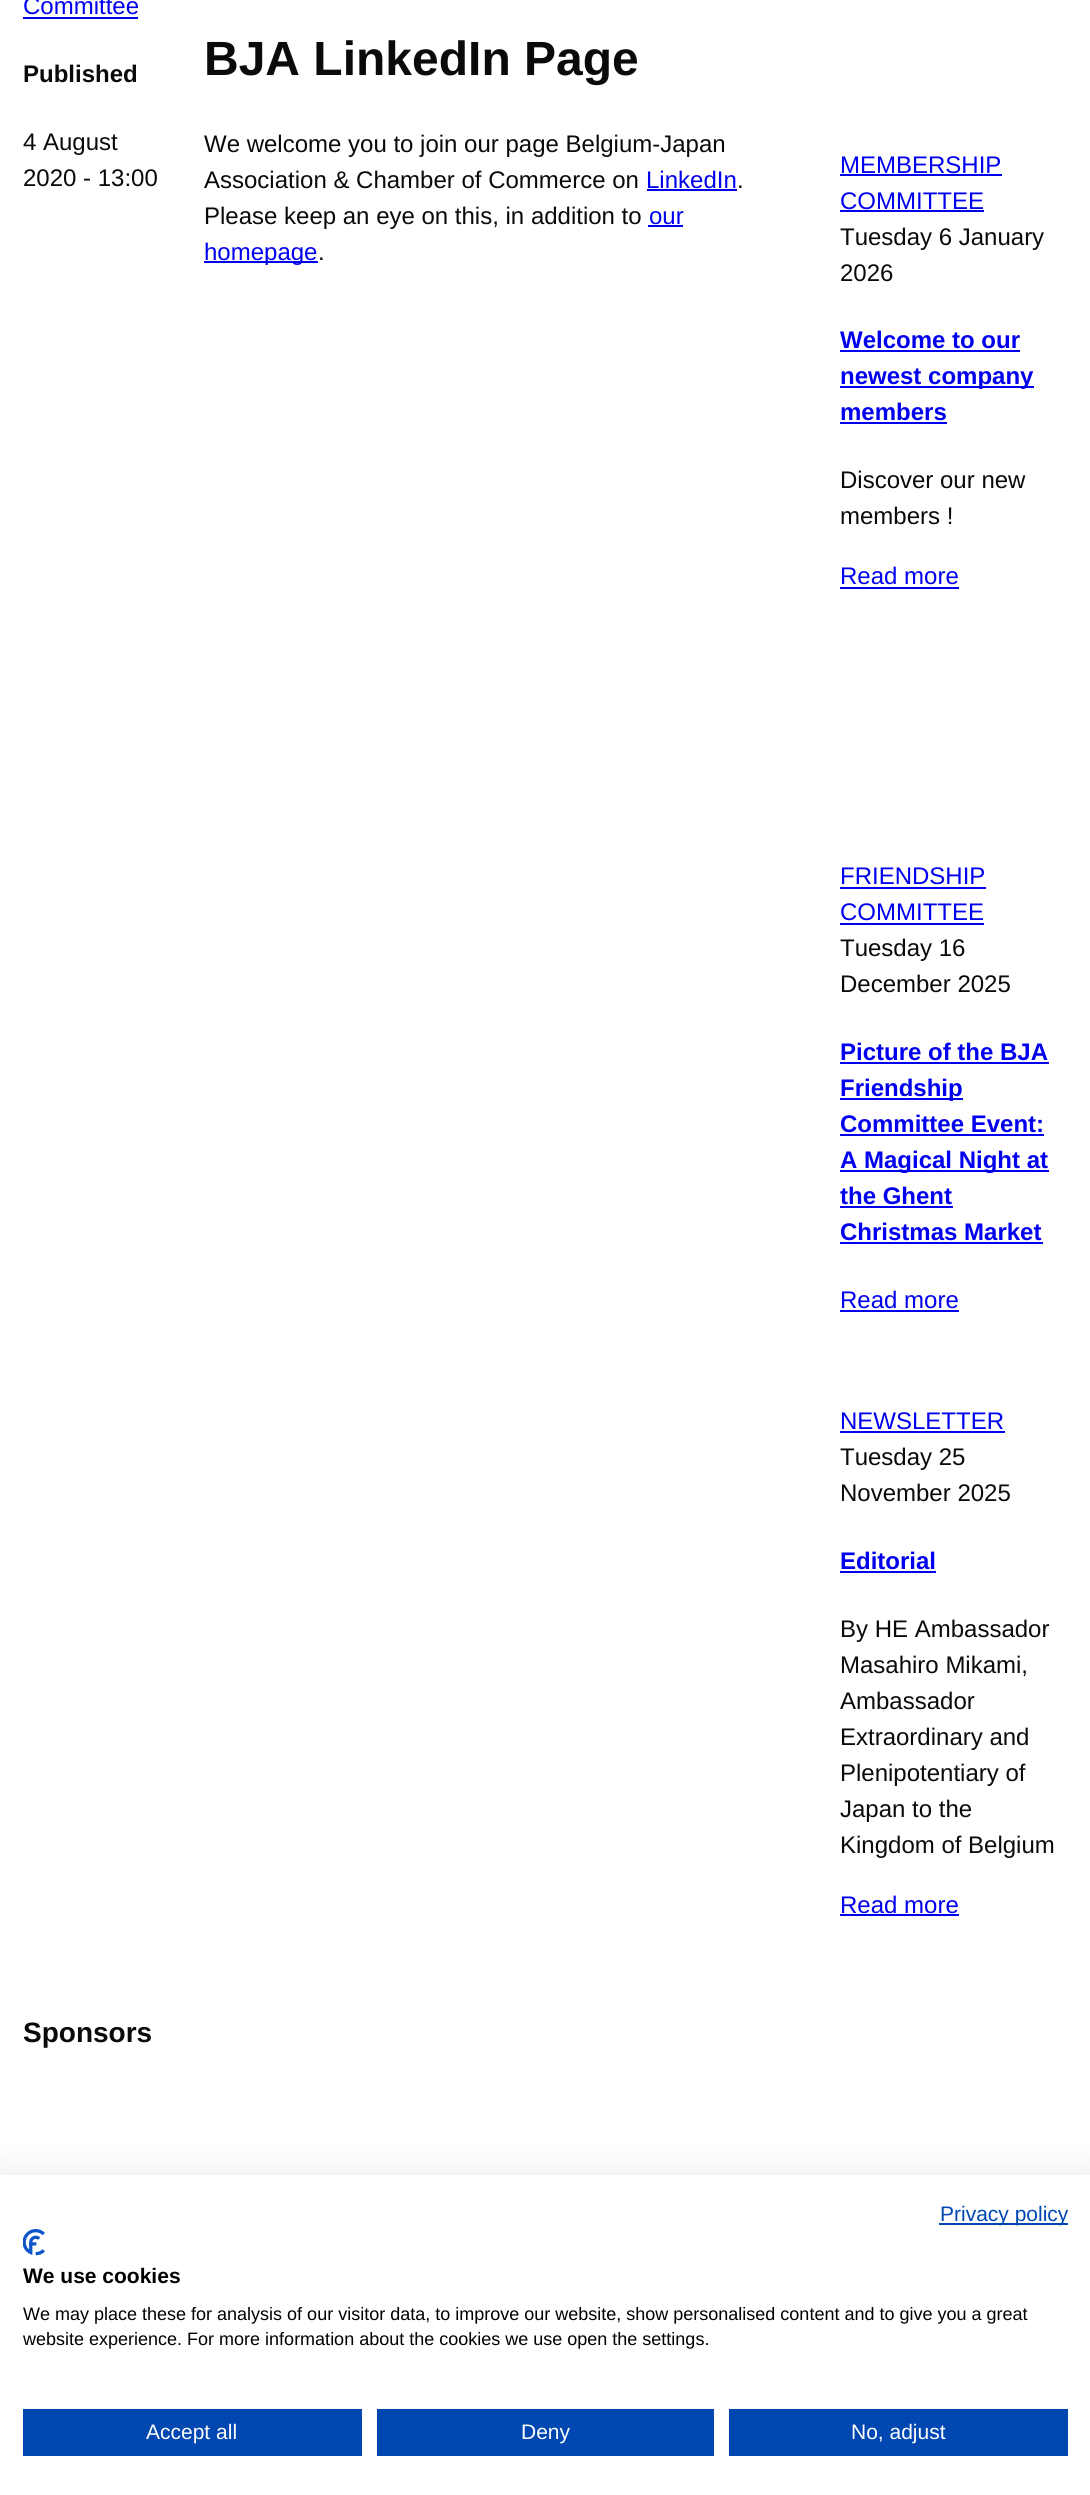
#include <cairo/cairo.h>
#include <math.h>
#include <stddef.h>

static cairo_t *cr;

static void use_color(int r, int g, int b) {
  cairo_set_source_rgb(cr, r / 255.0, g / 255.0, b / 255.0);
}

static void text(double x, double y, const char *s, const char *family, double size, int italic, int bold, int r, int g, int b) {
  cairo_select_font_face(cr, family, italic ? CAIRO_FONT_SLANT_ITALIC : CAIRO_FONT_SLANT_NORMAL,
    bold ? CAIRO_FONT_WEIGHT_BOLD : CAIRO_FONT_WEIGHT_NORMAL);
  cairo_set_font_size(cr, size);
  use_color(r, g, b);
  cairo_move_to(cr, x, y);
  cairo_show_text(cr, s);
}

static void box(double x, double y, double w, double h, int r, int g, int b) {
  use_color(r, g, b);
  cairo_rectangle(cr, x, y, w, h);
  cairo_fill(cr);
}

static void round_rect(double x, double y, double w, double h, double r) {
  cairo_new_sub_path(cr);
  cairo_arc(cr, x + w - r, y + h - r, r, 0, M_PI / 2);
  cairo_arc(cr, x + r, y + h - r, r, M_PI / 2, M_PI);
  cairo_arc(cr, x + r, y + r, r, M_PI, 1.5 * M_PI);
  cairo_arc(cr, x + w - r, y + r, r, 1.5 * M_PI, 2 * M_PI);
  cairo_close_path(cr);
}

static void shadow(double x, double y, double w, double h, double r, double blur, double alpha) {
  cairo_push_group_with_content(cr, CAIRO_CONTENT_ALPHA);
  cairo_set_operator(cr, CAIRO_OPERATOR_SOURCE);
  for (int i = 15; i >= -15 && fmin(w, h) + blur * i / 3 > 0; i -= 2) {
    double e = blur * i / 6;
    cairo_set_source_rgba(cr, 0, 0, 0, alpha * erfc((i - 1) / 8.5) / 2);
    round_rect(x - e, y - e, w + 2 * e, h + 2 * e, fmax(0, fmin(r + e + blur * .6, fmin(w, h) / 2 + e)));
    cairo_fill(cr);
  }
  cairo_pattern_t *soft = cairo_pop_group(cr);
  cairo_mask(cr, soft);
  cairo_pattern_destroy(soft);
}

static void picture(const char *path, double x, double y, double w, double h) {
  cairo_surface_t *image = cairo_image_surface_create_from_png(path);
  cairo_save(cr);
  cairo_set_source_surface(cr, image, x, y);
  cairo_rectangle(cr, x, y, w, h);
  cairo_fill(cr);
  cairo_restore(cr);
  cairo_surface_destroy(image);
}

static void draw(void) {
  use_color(255, 255, 255);
  cairo_paint(cr);
  box(23, 17, 115, 2, 0, 0, 238);
  box(647, 189, 90, 2, 0, 0, 238);
  box(648, 225, 35, 2, 0, 0, 238);
  box(204, 261, 114, 2, 0, 0, 238);
  box(840, 174, 162, 2, 0, 0, 238);
  box(840, 210, 144, 2, 0, 0, 238);
  box(840, 350, 180, 2, 0, 0, 238);
  box(840, 386, 194, 2, 0, 0, 238);
  box(840, 422, 107, 2, 0, 0, 238);
  box(840, 587, 119, 2, 0, 0, 238);
  box(840, 887, 146, 2, 0, 0, 238);
  box(840, 923, 144, 2, 0, 0, 238);
  box(840, 1062, 209, 2, 0, 0, 238);
  box(840, 1098, 123, 2, 0, 0, 238);
  box(840, 1134, 204, 2, 0, 0, 238);
  box(840, 1170, 209, 2, 0, 0, 238);
  box(840, 1206, 113, 2, 0, 0, 238);
  box(840, 1242, 203, 2, 0, 0, 238);
  box(840, 1310, 119, 2, 0, 0, 238);
  box(840, 1431, 165, 2, 0, 0, 238);
  box(840, 1571, 96, 2, 0, 0, 238);
  box(840, 1914, 119, 2, 0, 0, 238);
  use_color(0, 0, 0);
  shadow(0, 2175, 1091, 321, 0, 18, 0.1);
  box(0, 2175, 1090, 320, 255, 255, 255);
  box(939, 2223, 129, 2, 0, 71, 178);
  picture("img_01.png", 23, 2229, 22, 27);
  box(23, 2409, 339, 47, 0, 71, 178);
  box(377, 2409, 337, 47, 0, 71, 178);
  box(729, 2409, 339, 47, 0, 71, 178);
  text(23, 14, "Committee", "Liberation Sans", 24, 0, 0, 0, 0, 238);
  text(23, 82, "Published", "Liberation Sans", 24, 0, 1, 10, 10, 10);
  text(23, 150, "4 August", "Liberation Sans", 24, 0, 0, 10, 10, 10);
  text(23, 186, "2020 - 13:00", "Liberation Sans", 24, 0, 0, 10, 10, 10);
  text(204, 75, "BJA LinkedIn Page", "Liberation Sans", 48, 0, 1, 10, 10, 10);
  text(204, 152, "We welcome you to join our page Belgium-Japan", "Liberation Sans", 24, 0, 0, 10, 10, 10);
  text(204, 188, "Association & Chamber of Commerce on", "Liberation Sans", 24, 0, 0, 10, 10, 10);
  text(646, 188, "LinkedIn", "Liberation Sans", 24, 0, 0, 0, 0, 238);
  text(737, 188, ".", "Liberation Sans", 24, 0, 0, 10, 10, 10);
  text(204, 224, "Please keep an eye on this, in addition to", "Liberation Sans", 24, 0, 0, 10, 10, 10);
  text(649, 224, "our", "Liberation Sans", 24, 0, 0, 0, 0, 238);
  text(204, 260, "homepage", "Liberation Sans", 24, 0, 0, 0, 0, 238);
  text(318, 260, ".", "Liberation Sans", 24, 0, 0, 10, 10, 10);
  text(840, 173, "MEMBERSHIP", "Liberation Sans", 24, 0, 0, 0, 0, 238);
  text(840, 209, "COMMITTEE", "Liberation Sans", 24, 0, 0, 0, 0, 238);
  text(840, 245, "Tuesday 6 January", "Liberation Sans", 24, 0, 0, 10, 10, 10);
  text(840, 281, "2026", "Liberation Sans", 24, 0, 0, 10, 10, 10);
  text(840, 348, "Welcome to our", "Liberation Sans", 24, 0, 1, 0, 0, 238);
  text(840, 384, "newest company", "Liberation Sans", 24, 0, 1, 0, 0, 238);
  text(840, 420, "members", "Liberation Sans", 24, 0, 1, 0, 0, 238);
  text(840, 488, "Discover our new", "Liberation Sans", 24, 0, 0, 10, 10, 10);
  text(840, 524, "members !", "Liberation Sans", 24, 0, 0, 10, 10, 10);
  text(840, 584, "Read more", "Liberation Sans", 24, 0, 0, 0, 0, 238);
  text(840, 884, "FRIENDSHIP", "Liberation Sans", 24, 0, 0, 0, 0, 238);
  text(840, 920, "COMMITTEE", "Liberation Sans", 24, 0, 0, 0, 0, 238);
  text(840, 956, "Tuesday 16", "Liberation Sans", 24, 0, 0, 10, 10, 10);
  text(840, 992, "December 2025", "Liberation Sans", 24, 0, 0, 10, 10, 10);
  text(840, 1060, "Picture of the BJA", "Liberation Sans", 24, 0, 1, 0, 0, 238);
  text(840, 1096, "Friendship", "Liberation Sans", 24, 0, 1, 0, 0, 238);
  text(840, 1132, "Committee Event:", "Liberation Sans", 24, 0, 1, 0, 0, 238);
  text(840, 1168, "A Magical Night at", "Liberation Sans", 24, 0, 1, 0, 0, 238);
  text(840, 1204, "the Ghent", "Liberation Sans", 24, 0, 1, 0, 0, 238);
  text(840, 1240, "Christmas Market", "Liberation Sans", 24, 0, 1, 0, 0, 238);
  text(840, 1308, "Read more", "Liberation Sans", 24, 0, 0, 0, 0, 238);
  text(840, 1429, "NEWSLETTER", "Liberation Sans", 24, 0, 0, 0, 0, 238);
  text(840, 1465, "Tuesday 25", "Liberation Sans", 24, 0, 0, 10, 10, 10);
  text(840, 1501, "November 2025", "Liberation Sans", 24, 0, 0, 10, 10, 10);
  text(840, 1569, "Editorial", "Liberation Sans", 24, 0, 1, 0, 0, 238);
  text(840, 1637, "By HE Ambassador", "Liberation Sans", 24, 0, 0, 10, 10, 10);
  text(840, 1673, "Masahiro Mikami,", "Liberation Sans", 24, 0, 0, 10, 10, 10);
  text(840, 1709, "Ambassador", "Liberation Sans", 24, 0, 0, 10, 10, 10);
  text(840, 1745, "Extraordinary and", "Liberation Sans", 24, 0, 0, 10, 10, 10);
  text(840, 1781, "Plenipotentiary of", "Liberation Sans", 24, 0, 0, 10, 10, 10);
  text(840, 1817, "Japan to the", "Liberation Sans", 24, 0, 0, 10, 10, 10);
  text(840, 1853, "Kingdom of Belgium", "Liberation Sans", 24, 0, 0, 10, 10, 10);
  text(840, 1913, "Read more", "Liberation Sans", 24, 0, 0, 0, 0, 238);
  text(23, 2042, "Sponsors", "Liberation Sans", 28, 0, 1, 10, 10, 10);
  text(940, 2221, "Privacy policy", "Liberation Sans", 21, 0, 0, 0, 71, 178);
  text(23, 2283, "We use cookies", "Liberation Sans", 21, 0, 1, 0, 0, 0);
  text(23, 2320, "We may place these for analysis of our visitor data, to improve our website, show personalised content and to give you a great", "Liberation Sans", 18, 0, 0, 0, 0, 0);
  text(23, 2345, "website experience. For more information about the cookies we use open the settings.", "Liberation Sans", 18, 0, 0, 0, 0, 0);
  text(146, 2439, "Accept all", "Liberation Sans", 21, 0, 0, 255, 255, 255);
  text(521, 2439, "Deny", "Liberation Sans", 21, 0, 0, 255, 255, 255);
  text(851, 2439, "No, adjust", "Liberation Sans", 21, 0, 0, 255, 255, 255);
}

int main(void) {
  cairo_surface_t *surface = cairo_image_surface_create(CAIRO_FORMAT_RGB24, 1090, 2495);
  cr = cairo_create(surface);
  cairo_font_options_t *options = cairo_font_options_create();
  cairo_font_options_set_hint_metrics(options, CAIRO_HINT_METRICS_OFF);
  cairo_font_options_set_hint_style(options, CAIRO_HINT_STYLE_NONE);
  cairo_set_font_options(cr, options);
  cairo_set_miter_limit(cr, 4);
  draw();
  cairo_surface_write_to_png(surface, "out.png");
  cairo_font_options_destroy(options);
  cairo_destroy(cr);
  cairo_surface_destroy(surface);
  return 0;
}
